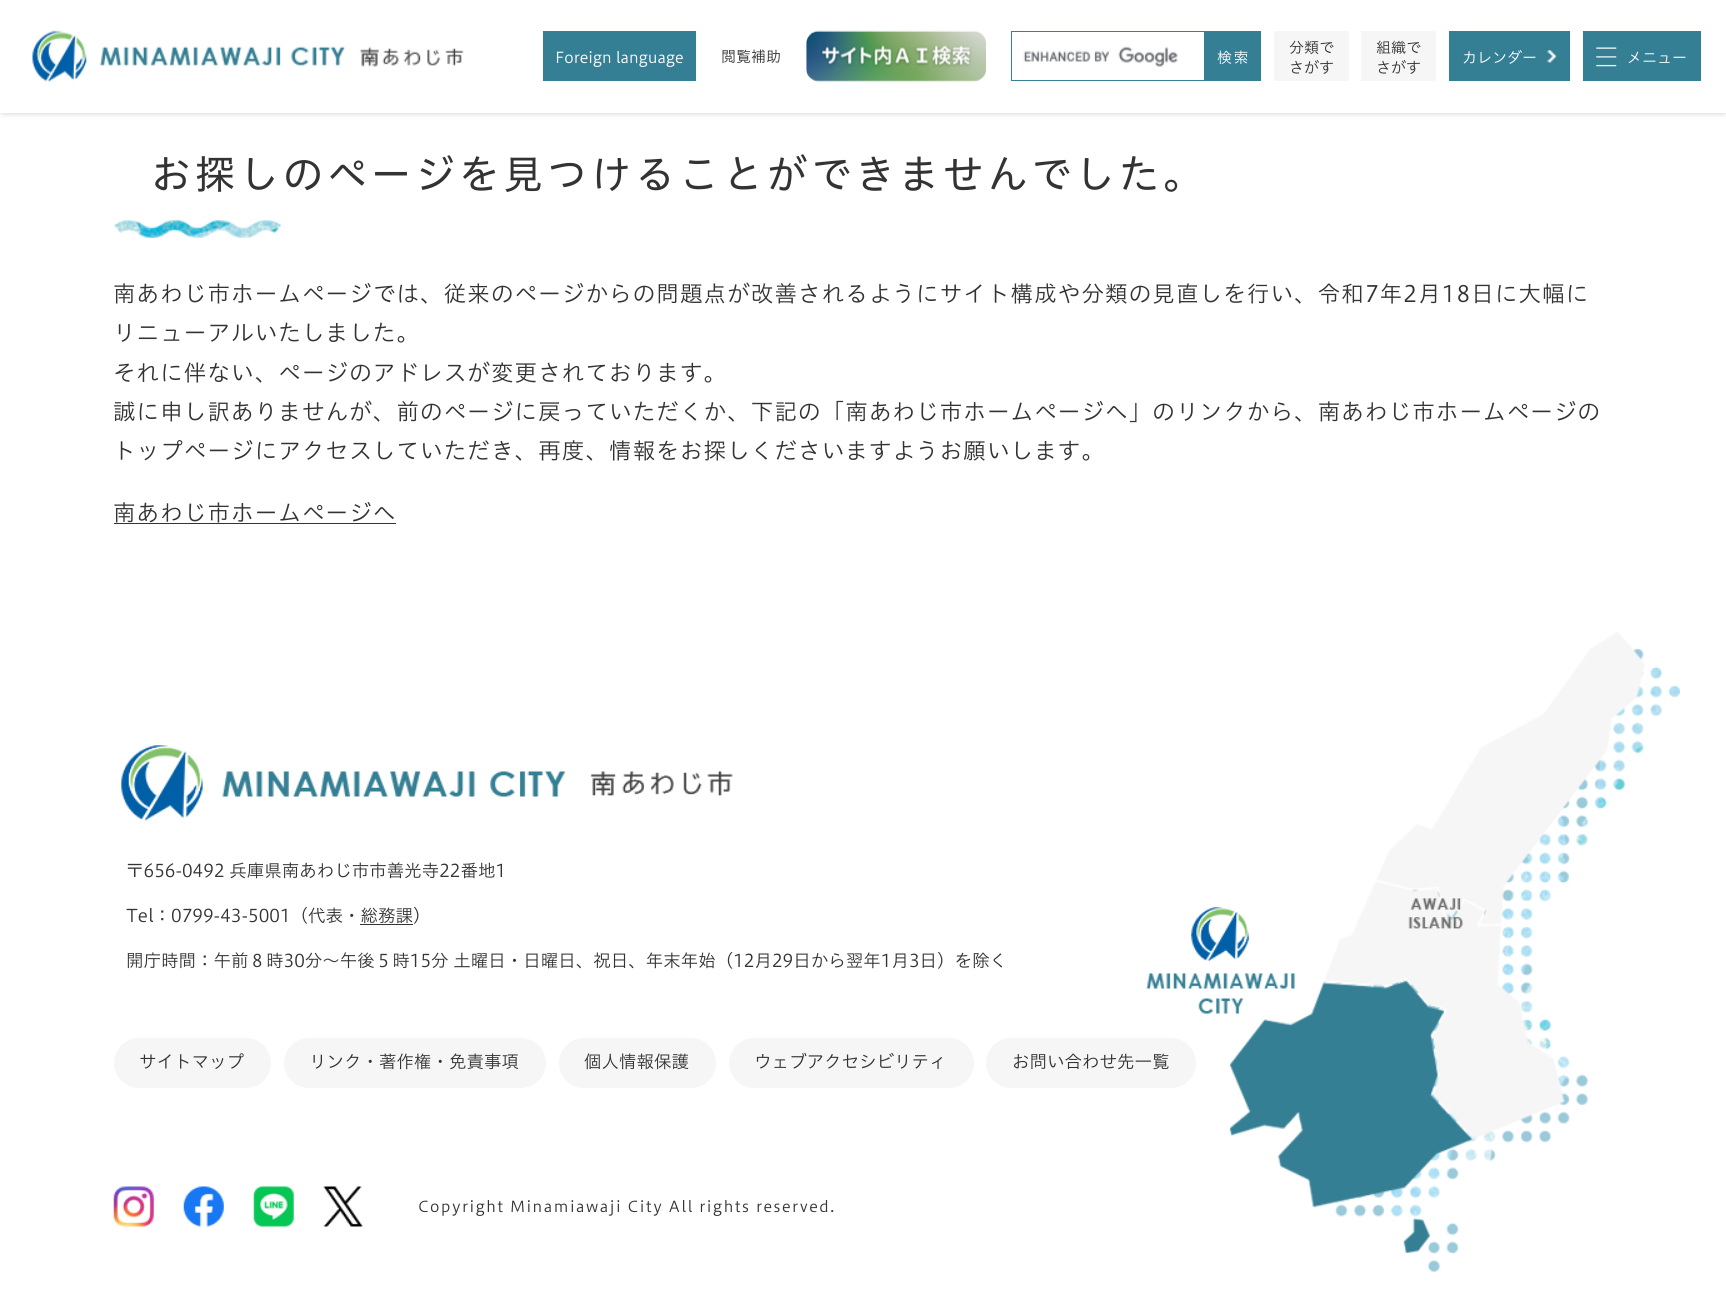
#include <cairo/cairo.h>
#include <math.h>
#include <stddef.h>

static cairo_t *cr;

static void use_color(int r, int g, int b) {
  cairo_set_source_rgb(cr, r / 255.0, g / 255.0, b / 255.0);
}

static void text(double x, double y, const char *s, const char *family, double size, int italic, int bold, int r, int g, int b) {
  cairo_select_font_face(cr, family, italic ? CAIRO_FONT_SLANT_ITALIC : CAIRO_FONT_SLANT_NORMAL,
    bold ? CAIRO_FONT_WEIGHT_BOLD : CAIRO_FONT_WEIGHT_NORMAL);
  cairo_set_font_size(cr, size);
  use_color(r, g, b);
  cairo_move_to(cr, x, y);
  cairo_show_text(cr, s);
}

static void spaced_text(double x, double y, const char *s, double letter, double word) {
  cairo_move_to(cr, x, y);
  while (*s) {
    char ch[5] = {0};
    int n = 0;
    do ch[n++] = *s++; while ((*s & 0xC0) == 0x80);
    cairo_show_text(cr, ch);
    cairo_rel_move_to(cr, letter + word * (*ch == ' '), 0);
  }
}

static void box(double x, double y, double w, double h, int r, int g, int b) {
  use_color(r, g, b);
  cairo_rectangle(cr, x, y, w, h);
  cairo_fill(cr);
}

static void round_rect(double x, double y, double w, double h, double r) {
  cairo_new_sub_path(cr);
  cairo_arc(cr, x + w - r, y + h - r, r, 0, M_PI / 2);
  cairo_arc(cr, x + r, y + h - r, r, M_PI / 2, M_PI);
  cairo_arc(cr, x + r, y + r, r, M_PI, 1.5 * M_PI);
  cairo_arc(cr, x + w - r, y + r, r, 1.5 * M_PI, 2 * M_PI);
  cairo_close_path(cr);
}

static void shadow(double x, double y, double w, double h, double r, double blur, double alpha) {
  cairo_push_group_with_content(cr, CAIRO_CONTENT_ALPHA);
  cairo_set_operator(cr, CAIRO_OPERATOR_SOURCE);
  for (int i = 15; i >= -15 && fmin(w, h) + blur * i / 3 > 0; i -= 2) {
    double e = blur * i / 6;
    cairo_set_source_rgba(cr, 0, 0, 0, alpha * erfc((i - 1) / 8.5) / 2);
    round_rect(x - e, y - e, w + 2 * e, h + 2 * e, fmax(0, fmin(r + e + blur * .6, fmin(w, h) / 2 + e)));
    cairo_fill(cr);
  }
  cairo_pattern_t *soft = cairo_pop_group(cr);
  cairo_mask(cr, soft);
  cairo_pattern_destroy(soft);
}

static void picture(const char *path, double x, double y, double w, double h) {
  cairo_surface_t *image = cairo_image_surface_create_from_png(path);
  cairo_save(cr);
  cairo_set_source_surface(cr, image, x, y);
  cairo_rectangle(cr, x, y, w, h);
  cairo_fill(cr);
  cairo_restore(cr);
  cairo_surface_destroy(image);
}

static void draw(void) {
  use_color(255, 255, 255);
  cairo_paint(cr);
  use_color(0, 0, 0);
  shadow(3, 3, 1721, 107, 0, 4, 0.5);
  box(0, 0, 1726, 113, 255, 255, 255);
  picture("img_01.png", 32, 30, 432, 52);
  box(543, 31, 153, 50, 53, 127, 148);
  picture("img_02.png", 806, 30, 181, 52);
  picture("img_03.png", 1023, 46, 155, 21);
  cairo_rectangle(cr, 1011.5, 31.5, 193, 49);
  cairo_set_line_width(cr, 1);
  cairo_stroke(cr);
  box(1205, 31, 56, 50, 53, 127, 148);
  box(1274, 31, 75, 50, 246, 246, 246);
  box(1361, 31, 75, 50, 246, 246, 246);
  box(1449, 31, 121, 50, 53, 127, 148);
  picture("img_04.png", 1547, 50, 10, 13);
  box(1583, 31, 118, 50, 53, 127, 148);
  picture("img_05.png", 1596, 47, 21, 20);
  picture("img_06.png", 113, 220, 169, 18);
  box(114, 523, 282, 1, 51, 51, 51);
  picture("img_07.png", 1146, 632, 534, 640);
  picture("img_08.png", 121, 745, 612, 76);
  box(360, 924, 53, 1, 51, 51, 51);
  use_color(246, 246, 246);
  round_rect(114, 1038, 157, 50, 25);
  cairo_fill(cr);
  round_rect(284, 1038, 262, 50, 25);
  cairo_fill(cr);
  round_rect(559, 1038, 157, 50, 25);
  cairo_fill(cr);
  round_rect(729, 1038, 245, 50, 25);
  cairo_fill(cr);
  round_rect(986, 1038, 210, 50, 25);
  cairo_fill(cr);
  picture("img_09.png", 113, 1186, 41, 41);
  picture("img_10.png", 183, 1186, 41, 41);
  picture("img_11.png", 253, 1186, 41, 41);
  picture("img_12.png", 323, 1186, 40, 41);
  text(555, 63, "Foreign language", "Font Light", 15, 0, 0, 255, 255, 255);
  text(721, 62, "閲覧補助", "Font Light", 15, 0, 0, 51, 51, 51);
  use_color(255, 255, 255);
  spaced_text(1217, 63, "検索", 1.5, 0);
  text(1289, 53, "分類で", "Font Light", 15, 0, 0, 51, 51, 51);
  text(1289, 73, "さがす", "Font Light", 15, 0, 0, 51, 51, 51);
  text(1376, 53, "組織で", "Font Light", 15, 0, 0, 51, 51, 51);
  text(1376, 73, "さがす", "Font Light", 15, 0, 0, 51, 51, 51);
  text(1462, 63, "カレンダー", "Font Light", 15, 0, 0, 255, 255, 255);
  text(1627, 63, "メニュー", "Font Light", 15, 0, 0, 255, 255, 255);
  cairo_select_font_face(cr, "Font", CAIRO_FONT_SLANT_NORMAL, CAIRO_FONT_WEIGHT_NORMAL);
  cairo_set_font_size(cr, 40);
  use_color(51, 51, 51);
  spaced_text(151, 189, "お探しのページを見つけることができませんでした。", 4, 0);
  cairo_select_font_face(cr, "Font Light", CAIRO_FONT_SLANT_NORMAL, CAIRO_FONT_WEIGHT_NORMAL);
  cairo_set_font_size(cr, 22.5);
  spaced_text(113, 302, "南あわじ市ホームページでは、従来のページからの問題点が改善されるようにサイト構成や分類の見直しを行い、令和7年2月18日に大幅に", 1.12, 0);
  spaced_text(113, 341, "リニューアルいたしました。", 1.12, 0);
  spaced_text(113, 381, "それに伴ない、ページのアドレスが変更されております。", 1.12, 0);
  spaced_text(113, 420, "誠に申し訳ありませんが、前のページに戻っていただくか、下記の「南あわじ市ホームページへ」のリンクから、南あわじ市ホームページの", 1.12, 0);
  spaced_text(113, 459, "トップページにアクセスしていただき、再度、情報をお探しくださいますようお願いします。", 1.12, 0);
  spaced_text(113, 521, "南あわじ市ホームページへ", 1.12, 0);
  text(126, 877, "〒656-0492 兵庫県南あわじ市市善光寺22番地1", "Font Light", 17.5, 0, 0, 51, 51, 51);
  text(126, 922, "Tel：0799-43-5001（代表・総務課）", "Font Light", 17.5, 0, 0, 51, 51, 51);
  text(126, 967, "開庁時間：午前８時30分～午後５時15分 土曜日・日曜日、祝日、年末年始（12月29日から翌年1月3日）を除く", "Font Light", 17.5, 0, 0, 51, 51, 51);
  text(139, 1068, "サイトマップ", "Font Light", 17.5, 0, 0, 51, 51, 51);
  text(309, 1068, "リンク・著作権・免責事項", "Font Light", 17.5, 0, 0, 51, 51, 51);
  text(584, 1068, "個人情報保護", "Font Light", 17.5, 0, 0, 51, 51, 51);
  text(754, 1068, "ウェブアクセシビリティ", "Font Light", 17.5, 0, 0, 51, 51, 51);
  text(1012, 1068, "お問い合わせ先一覧", "Font Light", 17.5, 0, 0, 51, 51, 51);
  cairo_set_font_size(cr, 15);
  spaced_text(418, 1212, "Copyright Minamiawaji City All rights reserved.", 1.5, 0);
}

int main(void) {
  cairo_surface_t *surface = cairo_image_surface_create(CAIRO_FORMAT_RGB24, 1726, 1306);
  cr = cairo_create(surface);
  cairo_font_options_t *options = cairo_font_options_create();
  cairo_font_options_set_hint_metrics(options, CAIRO_HINT_METRICS_OFF);
  cairo_font_options_set_hint_style(options, CAIRO_HINT_STYLE_NONE);
  cairo_set_font_options(cr, options);
  cairo_set_miter_limit(cr, 4);
  draw();
  cairo_surface_write_to_png(surface, "out.png");
  cairo_font_options_destroy(options);
  cairo_destroy(cr);
  cairo_surface_destroy(surface);
  return 0;
}
